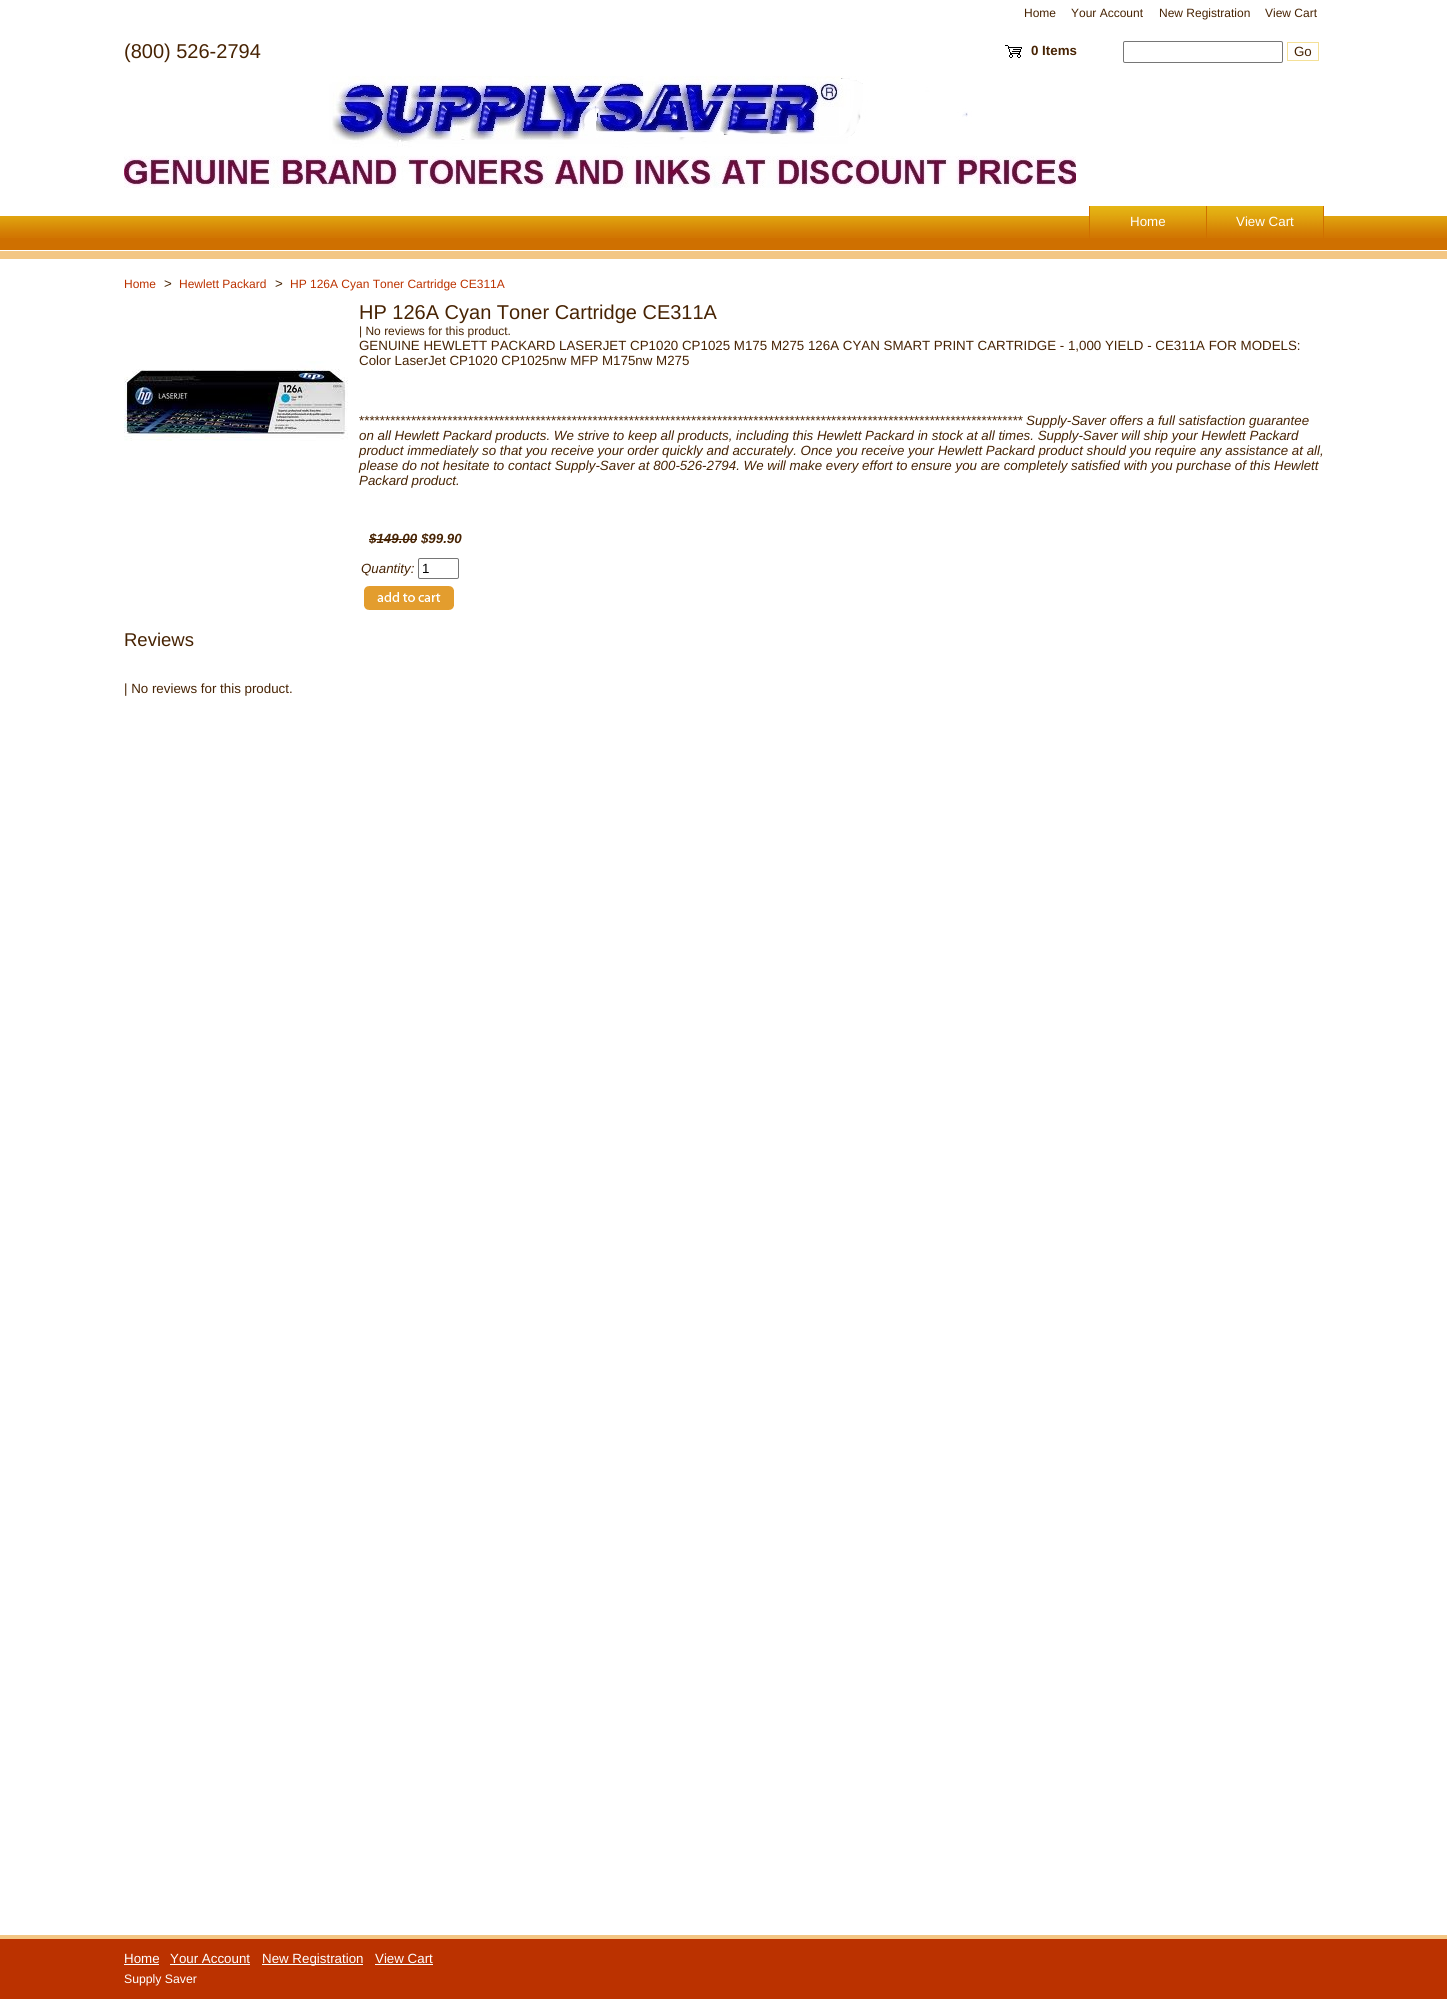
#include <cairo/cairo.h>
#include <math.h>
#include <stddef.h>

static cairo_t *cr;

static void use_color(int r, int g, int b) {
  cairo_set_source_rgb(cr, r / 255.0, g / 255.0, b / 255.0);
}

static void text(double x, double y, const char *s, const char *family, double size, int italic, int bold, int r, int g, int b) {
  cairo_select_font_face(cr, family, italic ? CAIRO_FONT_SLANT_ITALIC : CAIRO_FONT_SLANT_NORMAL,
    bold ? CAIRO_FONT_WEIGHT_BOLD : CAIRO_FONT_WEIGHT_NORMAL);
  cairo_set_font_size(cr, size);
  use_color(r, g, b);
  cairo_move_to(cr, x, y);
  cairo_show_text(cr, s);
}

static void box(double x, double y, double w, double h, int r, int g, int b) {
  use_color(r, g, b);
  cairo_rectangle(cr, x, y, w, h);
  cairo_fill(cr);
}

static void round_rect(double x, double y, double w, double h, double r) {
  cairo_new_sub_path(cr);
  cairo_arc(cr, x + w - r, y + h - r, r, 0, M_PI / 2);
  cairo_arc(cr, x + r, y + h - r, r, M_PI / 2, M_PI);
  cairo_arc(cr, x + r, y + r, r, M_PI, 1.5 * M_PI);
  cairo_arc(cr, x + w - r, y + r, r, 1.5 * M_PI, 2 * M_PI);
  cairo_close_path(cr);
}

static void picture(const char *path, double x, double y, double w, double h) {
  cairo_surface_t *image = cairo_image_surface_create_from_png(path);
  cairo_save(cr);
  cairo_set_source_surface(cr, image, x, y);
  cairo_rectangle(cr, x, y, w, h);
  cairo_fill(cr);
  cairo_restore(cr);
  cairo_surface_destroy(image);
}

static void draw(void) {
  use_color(255, 255, 255);
  cairo_paint(cr);
  picture("img_01.png", 1005, 45, 17, 13);
  round_rect(1123.5, 41.5, 159, 21, 1.5);
  use_color(118, 118, 118);
  cairo_set_line_width(cr, 1);
  cairo_stroke(cr);
  cairo_rectangle(cr, 1287.5, 42.5, 31, 18);
  use_color(244, 224, 151);
  cairo_stroke(cr);
  picture("img_02.png", 124, 76, 952, 112);
  box(0, 216, 1447, 34, 207, 112, 0);
  picture("img_03.png", 0, 216, 1447, 22);
  box(1089, 206, 235, 32, 207, 112, 0);
  picture("img_04.png", 1090, 206, 116, 32);
  picture("img_04.png", 1207, 206, 116, 32);
  box(0, 251, 1447, 8, 243, 198, 132);
  picture("img_05.png", 124, 361, 224, 80);
  box(369, 539, 48, 1, 71, 35, 3);
  round_rect(418.5, 558.5, 40, 20, 1.5);
  use_color(118, 118, 118);
  cairo_stroke(cr);
  picture("img_06.png", 364, 586, 90, 24);
  box(0, 1939, 1447, 60, 187, 50, 0);
  box(0, 1935, 1447, 4, 243, 198, 132);
  box(124, 1964, 35, 1, 255, 255, 255);
  box(170, 1964, 80, 1, 255, 255, 255);
  box(262, 1964, 101, 1, 255, 255, 255);
  box(375, 1964, 58, 1, 255, 255, 255);
  text(1024, 17, "Home", "Liberation Sans", 12, 0, 0, 71, 35, 3);
  text(1071, 17, "Your Account", "Liberation Sans", 12, 0, 0, 71, 35, 3);
  text(1159, 17, "New Registration", "Liberation Sans", 12, 0, 0, 71, 35, 3);
  text(1265, 17, "View Cart", "Liberation Sans", 12, 0, 0, 71, 35, 3);
  text(124, 58, "(800) 526-2794", "Liberation Sans", 20, 0, 0, 71, 35, 3);
  text(1031, 55, "0 Items", "Liberation Sans", 13.33, 0, 1, 71, 35, 3);
  text(1294, 56, "Go", "Liberation Sans", 13.33, 0, 0, 71, 35, 3);
  text(1130, 226, "Home", "Liberation Sans", 13.33, 0, 0, 255, 255, 255);
  text(1236, 226, "View Cart", "Liberation Sans", 13.33, 0, 0, 255, 255, 255);
  text(124, 288, "Home", "Liberation Sans", 12, 0, 0, 187, 50, 0);
  text(164, 288, ">", "Liberation Sans", 13.33, 0, 0, 71, 35, 3);
  text(179, 288, "Hewlett Packard", "Liberation Sans", 12, 0, 0, 187, 50, 0);
  text(275, 288, ">", "Liberation Sans", 13.33, 0, 0, 71, 35, 3);
  text(290, 288, "HP 126A Cyan Toner Cartridge CE311A", "Liberation Sans", 12, 0, 0, 187, 50, 0);
  text(359, 319, "HP 126A Cyan Toner Cartridge CE311A", "Liberation Sans", 20, 0, 0, 71, 35, 3);
  text(359, 335, "| No reviews for this product.", "Liberation Sans", 12, 0, 0, 71, 35, 3);
  text(359, 350, "GENUINE HEWLETT PACKARD LASERJET CP1020 CP1025 M175 M275 126A CYAN SMART PRINT CARTRIDGE - 1,000 YIELD - CE311A FOR MODELS:", "Liberation Sans", 13.33, 0, 0, 71, 35, 3);
  text(359, 365, "Color LaserJet CP1020 CP1025nw MFP M175nw M275", "Liberation Sans", 13.33, 0, 0, 71, 35, 3);
  text(359, 425, "********************************************************************************************************************************", "Liberation Sans", 13.33, 0, 0, 71, 35, 3);
  text(1026, 425, "Supply-Saver offers a full satisfaction guarantee", "Liberation Sans", 13.33, 1, 0, 71, 35, 3);
  text(359, 440, "on all Hewlett Packard products. We strive to keep all products, including this Hewlett Packard in stock at all times. Supply-Saver will ship your Hewlett Packard", "Liberation Sans", 13.33, 1, 0, 71, 35, 3);
  text(359, 455, "product immediately so that you receive your order quickly and accurately. Once you receive your Hewlett Packard product should you require any assistance at all,", "Liberation Sans", 13.33, 1, 0, 71, 35, 3);
  text(359, 470, "please do not hesitate to contact Supply-Saver at 800-526-2794. We will make every effort to ensure you are completely satisfied with you purchase of this Hewlett", "Liberation Sans", 13.33, 1, 0, 71, 35, 3);
  text(359, 485, "Packard product.", "Liberation Sans", 13.33, 1, 0, 71, 35, 3);
  text(369, 543, "$149.00 $99.90", "Liberation Sans", 13.33, 1, 1, 71, 35, 3);
  text(361, 573, "Quantity:", "Liberation Sans", 13.33, 1, 0, 71, 35, 3);
  text(422, 573, "1", "Liberation Sans", 13.33, 0, 0, 0, 0, 0);
  text(124, 646, "Reviews", "Liberation Sans", 18.5, 0, 0, 71, 35, 3);
  text(124, 693, "| No reviews for this product.", "Liberation Sans", 13.33, 0, 0, 71, 35, 3);
  text(124, 1963, "Home", "Liberation Sans", 13.33, 0, 0, 255, 255, 255);
  text(170, 1963, "Your Account", "Liberation Sans", 13.33, 0, 0, 255, 255, 255);
  text(262, 1963, "New Registration", "Liberation Sans", 13.33, 0, 0, 255, 255, 255);
  text(375, 1963, "View Cart", "Liberation Sans", 13.33, 0, 0, 255, 255, 255);
  text(124, 1983, "Supply Saver", "Liberation Sans", 12.25, 0, 0, 255, 255, 255);
}

int main(void) {
  cairo_surface_t *surface = cairo_image_surface_create(CAIRO_FORMAT_RGB24, 1447, 1999);
  cr = cairo_create(surface);
  cairo_font_options_t *options = cairo_font_options_create();
  cairo_font_options_set_hint_metrics(options, CAIRO_HINT_METRICS_OFF);
  cairo_font_options_set_hint_style(options, CAIRO_HINT_STYLE_NONE);
  cairo_set_font_options(cr, options);
  cairo_set_miter_limit(cr, 4);
  draw();
  cairo_surface_write_to_png(surface, "out.png");
  cairo_font_options_destroy(options);
  cairo_destroy(cr);
  cairo_surface_destroy(surface);
  return 0;
}
